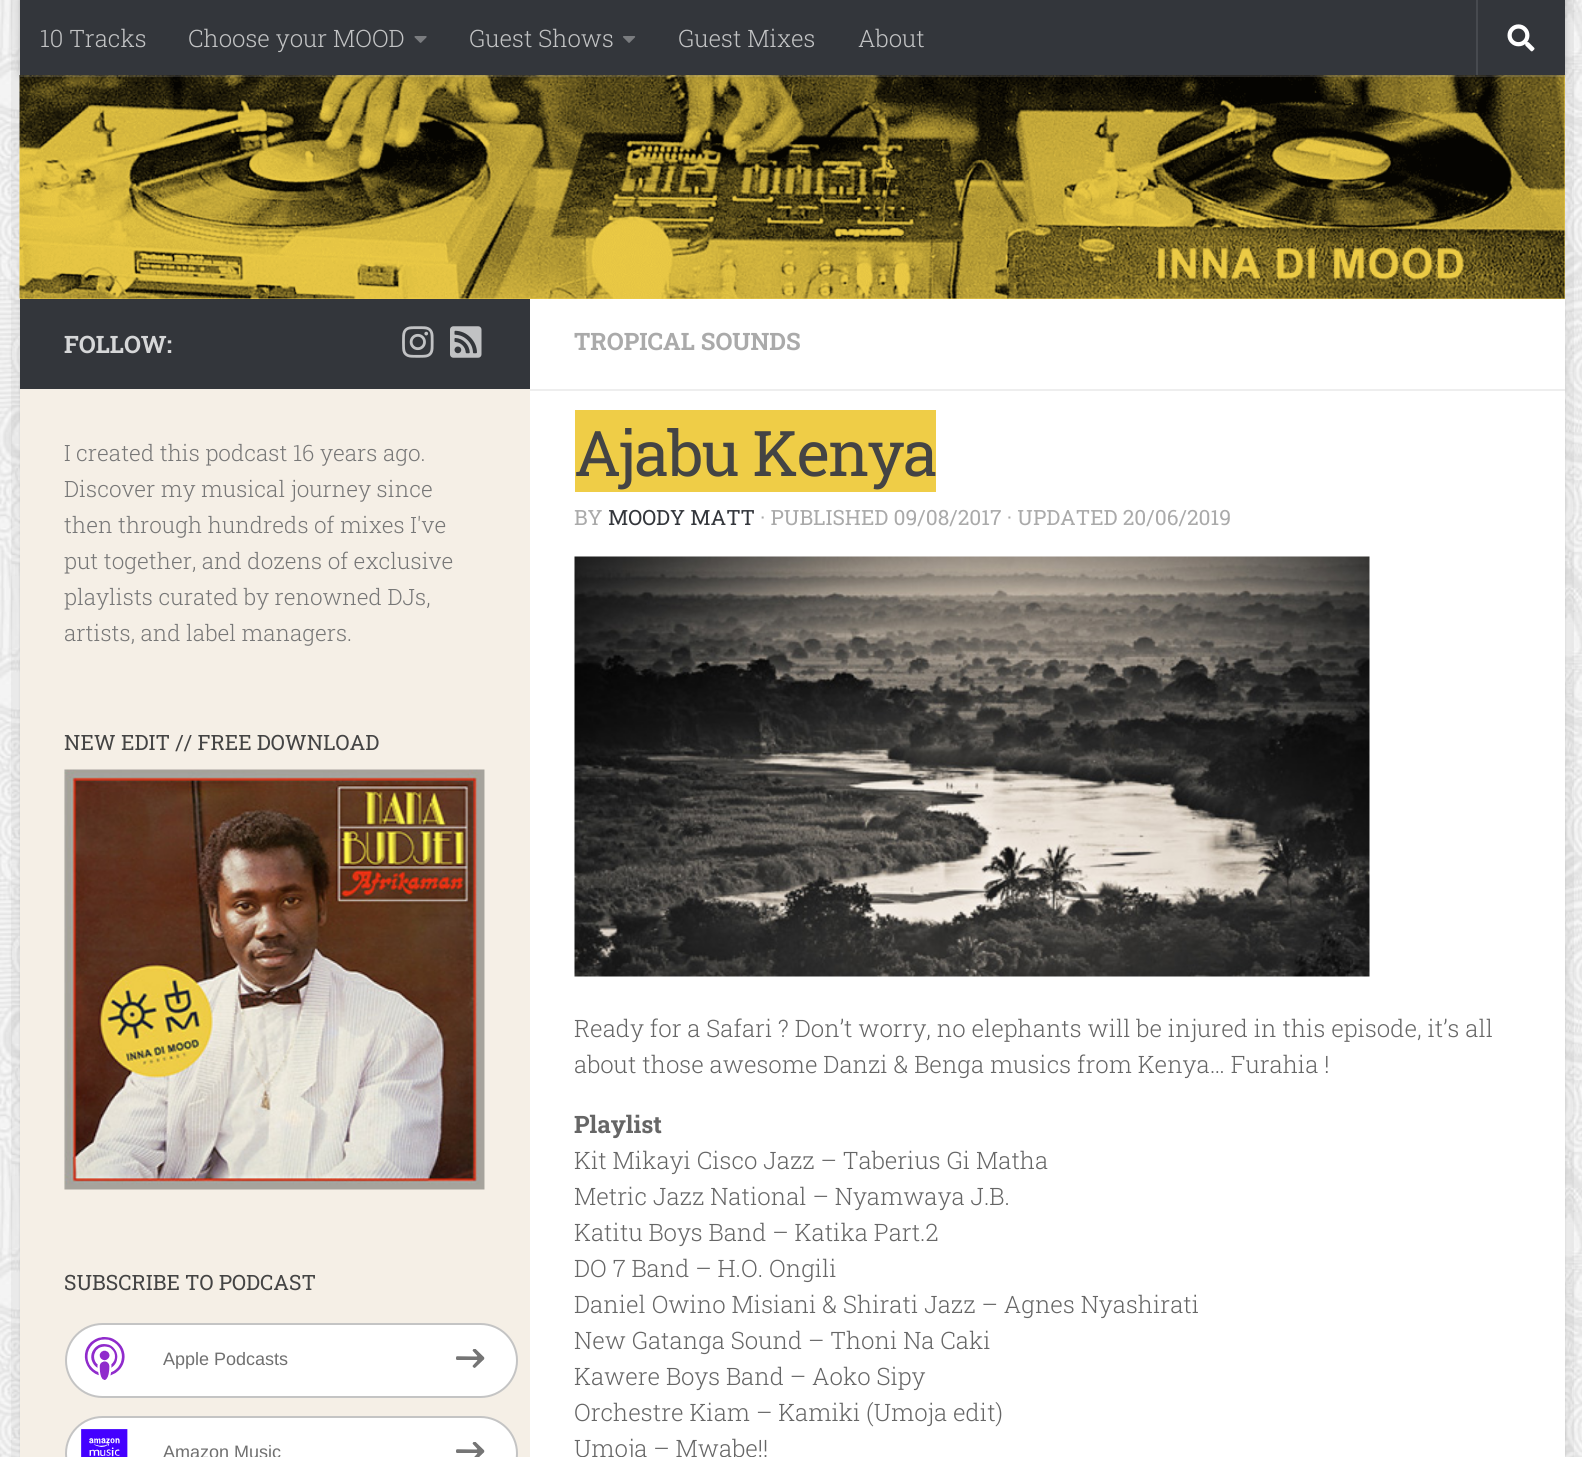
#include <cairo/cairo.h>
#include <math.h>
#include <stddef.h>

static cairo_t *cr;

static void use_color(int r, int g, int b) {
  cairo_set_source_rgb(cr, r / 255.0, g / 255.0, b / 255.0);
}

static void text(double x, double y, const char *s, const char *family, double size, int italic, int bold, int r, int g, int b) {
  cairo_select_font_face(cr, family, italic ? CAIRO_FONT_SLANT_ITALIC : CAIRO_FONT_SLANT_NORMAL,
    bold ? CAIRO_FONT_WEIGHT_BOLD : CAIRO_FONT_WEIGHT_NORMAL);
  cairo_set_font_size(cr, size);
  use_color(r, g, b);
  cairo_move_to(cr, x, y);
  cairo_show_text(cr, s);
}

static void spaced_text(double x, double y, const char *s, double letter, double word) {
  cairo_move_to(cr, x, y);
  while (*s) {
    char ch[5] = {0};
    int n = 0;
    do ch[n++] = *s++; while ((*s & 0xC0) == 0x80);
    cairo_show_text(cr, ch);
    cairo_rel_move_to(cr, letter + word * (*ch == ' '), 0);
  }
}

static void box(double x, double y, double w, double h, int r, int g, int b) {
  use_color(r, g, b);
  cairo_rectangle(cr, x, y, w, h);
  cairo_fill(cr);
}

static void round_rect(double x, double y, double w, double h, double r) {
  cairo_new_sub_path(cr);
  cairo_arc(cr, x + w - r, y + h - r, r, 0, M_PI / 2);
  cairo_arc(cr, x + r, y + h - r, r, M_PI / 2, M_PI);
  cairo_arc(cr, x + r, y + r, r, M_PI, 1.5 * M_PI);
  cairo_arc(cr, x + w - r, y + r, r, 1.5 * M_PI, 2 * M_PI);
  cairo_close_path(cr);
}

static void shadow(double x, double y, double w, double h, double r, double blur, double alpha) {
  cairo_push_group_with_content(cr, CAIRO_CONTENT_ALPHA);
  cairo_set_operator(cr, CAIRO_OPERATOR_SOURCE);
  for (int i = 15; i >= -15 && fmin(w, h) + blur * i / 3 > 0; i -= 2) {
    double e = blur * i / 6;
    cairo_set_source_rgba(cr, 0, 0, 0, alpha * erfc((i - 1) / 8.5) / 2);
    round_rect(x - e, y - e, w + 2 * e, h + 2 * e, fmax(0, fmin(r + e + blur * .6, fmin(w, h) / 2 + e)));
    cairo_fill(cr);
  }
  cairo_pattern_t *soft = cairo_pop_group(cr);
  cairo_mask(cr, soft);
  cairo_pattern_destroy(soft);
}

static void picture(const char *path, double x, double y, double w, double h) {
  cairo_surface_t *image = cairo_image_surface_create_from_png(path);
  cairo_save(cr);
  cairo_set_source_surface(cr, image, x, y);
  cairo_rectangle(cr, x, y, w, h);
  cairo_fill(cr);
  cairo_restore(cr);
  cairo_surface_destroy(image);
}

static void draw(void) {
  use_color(255, 255, 255);
  cairo_paint(cr);
  picture("img_01.png", 0, 0, 1582, 1457);
  cairo_set_source_rgba(cr, 0, 0, 0, 0.04);
  cairo_rectangle(cr, 11, 0, 9, 1457);
  cairo_fill(cr);
  cairo_rectangle(cr, 1565, 0, 9, 1457);
  cairo_fill(cr);
  use_color(0, 0, 0);
  shadow(20, 300, 1545, 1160, 0, 1, 0.1);
  box(20, 75, 1545, 224, 239, 205, 71);
  picture("img_05.png", 19, 75, 1546, 224);
  cairo_set_source_rgba(cr, 1, 1, 1, 0.15);
  cairo_new_path(cr);
  cairo_move_to(cr, 20, 75);
  cairo_line_to(cr, 20, 77);
  cairo_line_to(cr, 1565, 77);
  cairo_line_to(cr, 1565, 2);
  cairo_line_to(cr, 1564, 2);
  cairo_line_to(cr, 1564, 75);
  cairo_close_path(cr);
  cairo_fill(cr);
  use_color(0, 0, 0);
  shadow(20, 0, 1545, 75, 0, 4, 0.2);
  box(20, 0, 1545, 75, 51, 54, 59);
  picture("img_02.png", 414, 36, 13, 7);
  picture("img_03.png", 623, 36, 13, 7);
  box(1476, 0, 2, 75, 71, 74, 79);
  picture("img_04.png", 1507, 24, 28, 28);
  box(530, 299, 1035, 1158, 255, 255, 255);
  box(20, 299, 510, 90, 51, 54, 59);
  picture("img_06.png", 402, 326, 32, 32);
  picture("img_07.png", 450, 326, 32, 32);
  box(20, 389, 510, 1068, 245, 239, 230);
  picture("img_08.png", 64, 769, 421, 421);
  use_color(255, 255, 255);
  round_rect(66, 1324, 451, 73, 36.5);
  cairo_fill_preserve(cr);
  use_color(196, 196, 196);
  cairo_stroke(cr);
  picture("img_09.png", 84, 1337, 41, 43);
  picture("img_10.png", 456, 1349, 29, 19);
  use_color(255, 255, 255);
  round_rect(66, 1417, 451, 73, 36.5);
  cairo_fill_preserve(cr);
  use_color(196, 196, 196);
  cairo_stroke(cr);
  picture("img_11.png", 81, 1429, 47, 28);
  picture("img_12.png", 456, 1442, 29, 15);
  box(530, 389, 1035, 2, 238, 238, 238);
  box(575, 410, 361, 82, 239, 205, 71);
  picture("img_13.png", 574, 556, 796, 421);
  text(40, 47, "10 Tracks", "Roboto Slab Light", 24, 0, 0, 194, 195, 196);
  text(188, 47, "Choose your MOOD", "Roboto Slab Light", 24, 0, 0, 194, 195, 196);
  text(469, 47, "Guest Shows", "Roboto Slab Light", 24, 0, 0, 194, 195, 196);
  text(678, 47, "Guest Mixes", "Roboto Slab Light", 24, 0, 0, 194, 195, 196);
  text(858, 47, "About", "Roboto Slab Light", 24, 0, 0, 194, 195, 196);
  text(64, 353, "FOLLOW:", "Roboto Slab", 24, 0, 1, 214, 215, 216);
  text(64, 461, "I created this podcast 16 years ago.", "Roboto Slab Light", 22.5, 0, 0, 119, 119, 119);
  text(64, 497, "Discover my musical journey since", "Roboto Slab Light", 22.5, 0, 0, 119, 119, 119);
  text(64, 533, "then through hundreds of mixes I've", "Roboto Slab Light", 22.5, 0, 0, 119, 119, 119);
  text(64, 569, "put together, and dozens of exclusive", "Roboto Slab Light", 22.5, 0, 0, 119, 119, 119);
  text(64, 605, "playlists curated by renowned DJs,", "Roboto Slab Light", 22.5, 0, 0, 119, 119, 119);
  text(64, 641, "artists, and label managers.", "Roboto Slab Light", 22.5, 0, 0, 119, 119, 119);
  text(64, 750, "NEW EDIT // FREE DOWNLOAD", "Roboto Slab", 21.1, 0, 0, 68, 68, 68);
  text(64, 1290, "SUBSCRIBE TO PODCAST", "Roboto Slab", 21.1, 0, 0, 68, 68, 68);
  text(163, 1365, "Apple Podcasts", "Liberation Sans", 18, 0, 0, 112, 112, 112);
  text(163, 1458, "Amazon Music", "Liberation Sans", 18, 0, 0, 112, 112, 112);
  text(574, 350, "TROPICAL SOUNDS", "Roboto Slab", 24, 0, 1, 170, 170, 170);
  cairo_select_font_face(cr, "Roboto Slab", CAIRO_FONT_SLANT_NORMAL, CAIRO_FONT_WEIGHT_NORMAL);
  cairo_set_font_size(cr, 63);
  use_color(68, 68, 68);
  spaced_text(574, 476, "Ajabu Kenya", -1.5, 0);
  text(574, 525, "BY", "Roboto Slab", 21, 0, 0, 170, 170, 170);
  text(608, 525, "MOODY MATT", "Roboto Slab", 21, 0, 0, 51, 54, 59);
  text(760, 525, "· PUBLISHED 09/08/2017 · UPDATED 20/06/2019", "Roboto Slab", 21, 0, 0, 170, 170, 170);
  text(574, 1037, "Ready for a Safari ? Don’t worry, no elephants will be injured in this episode, it’s all", "Roboto Slab Light", 24, 0, 0, 102, 102, 102);
  text(574, 1073, "about those awesome Danzi & Benga musics from Kenya… Furahia !", "Roboto Slab Light", 24, 0, 0, 102, 102, 102);
  text(574, 1133, "Playlist", "Roboto Slab", 24, 0, 1, 102, 102, 102);
  text(574, 1169, "Kit Mikayi Cisco Jazz – Taberius Gi Matha", "Roboto Slab Light", 24, 0, 0, 102, 102, 102);
  text(574, 1205, "Metric Jazz National – Nyamwaya J.B.", "Roboto Slab Light", 24, 0, 0, 102, 102, 102);
  text(574, 1241, "Katitu Boys Band – Katika Part.2", "Roboto Slab Light", 24, 0, 0, 102, 102, 102);
  text(574, 1277, "DO 7 Band – H.O. Ongili", "Roboto Slab Light", 24, 0, 0, 102, 102, 102);
  text(574, 1313, "Daniel Owino Misiani & Shirati Jazz – Agnes Nyashirati", "Roboto Slab Light", 24, 0, 0, 102, 102, 102);
  text(574, 1349, "New Gatanga Sound – Thoni Na Caki", "Roboto Slab Light", 24, 0, 0, 102, 102, 102);
  text(574, 1385, "Kawere Boys Band – Aoko Sipy", "Roboto Slab Light", 24, 0, 0, 102, 102, 102);
  text(574, 1421, "Orchestre Kiam – Kamiki (Umoja edit)", "Roboto Slab Light", 24, 0, 0, 102, 102, 102);
  text(574, 1457, "Umoja – Mwabe!!", "Roboto Slab Light", 24, 0, 0, 102, 102, 102);
}

int main(void) {
  cairo_surface_t *surface = cairo_image_surface_create(CAIRO_FORMAT_RGB24, 1582, 1457);
  cr = cairo_create(surface);
  cairo_font_options_t *options = cairo_font_options_create();
  cairo_font_options_set_hint_metrics(options, CAIRO_HINT_METRICS_OFF);
  cairo_font_options_set_hint_style(options, CAIRO_HINT_STYLE_NONE);
  cairo_set_font_options(cr, options);
  cairo_set_miter_limit(cr, 4);
  draw();
  cairo_surface_write_to_png(surface, "out.png");
  cairo_font_options_destroy(options);
  cairo_destroy(cr);
  cairo_surface_destroy(surface);
  return 0;
}
